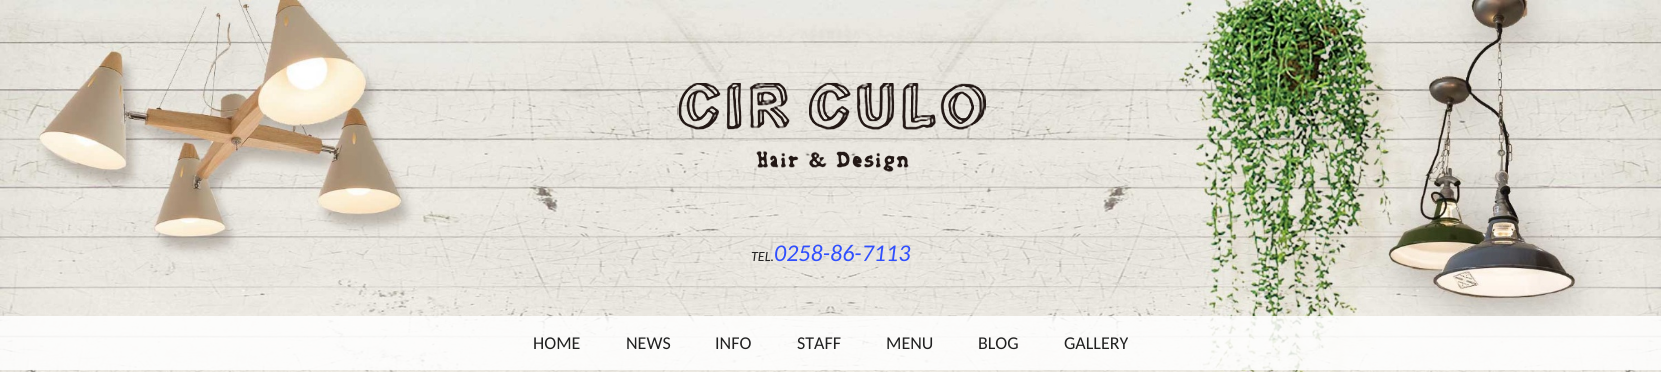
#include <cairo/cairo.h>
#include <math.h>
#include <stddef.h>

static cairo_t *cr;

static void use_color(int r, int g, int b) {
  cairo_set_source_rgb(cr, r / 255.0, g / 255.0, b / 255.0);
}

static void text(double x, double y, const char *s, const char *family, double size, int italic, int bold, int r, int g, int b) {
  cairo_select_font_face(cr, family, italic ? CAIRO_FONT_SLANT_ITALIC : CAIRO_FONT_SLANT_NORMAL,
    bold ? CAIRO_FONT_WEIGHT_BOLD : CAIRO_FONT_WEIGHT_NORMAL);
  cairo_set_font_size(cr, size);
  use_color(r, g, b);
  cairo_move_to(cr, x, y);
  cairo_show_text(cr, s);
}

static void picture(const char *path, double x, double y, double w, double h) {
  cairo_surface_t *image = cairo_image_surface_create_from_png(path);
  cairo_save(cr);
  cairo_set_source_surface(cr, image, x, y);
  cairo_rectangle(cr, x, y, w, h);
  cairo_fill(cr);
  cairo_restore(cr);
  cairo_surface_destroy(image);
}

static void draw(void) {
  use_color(255, 255, 255);
  cairo_paint(cr);
  picture("img_01.png", 0, 0, 1661, 372);
  picture("img_02.png", 677, 83, 309, 89);
  cairo_set_source_rgba(cr, 1, 1, 1, 0.85);
  cairo_rectangle(cr, 0, 316, 1661, 54);
  cairo_fill(cr);
  text(751, 261, "TEL.", "Carlito", 14, 1, 0, 33, 33, 33);
  text(774, 261, "0258-86-7113", "Carlito", 24, 1, 0, 48, 79, 254);
  text(533, 349, "HOME", "Carlito", 18, 0, 0, 33, 33, 33);
  text(626, 349, "NEWS", "Carlito", 18, 0, 0, 33, 33, 33);
  text(715, 349, "INFO", "Carlito", 18, 0, 0, 33, 33, 33);
  text(797, 349, "STAFF", "Carlito", 18, 0, 0, 33, 33, 33);
  text(886, 349, "MENU", "Carlito", 18, 0, 0, 33, 33, 33);
  text(978, 349, "BLOG", "Carlito", 18, 0, 0, 33, 33, 33);
  text(1064, 349, "GALLERY", "Carlito", 18, 0, 0, 33, 33, 33);
}

int main(void) {
  cairo_surface_t *surface = cairo_image_surface_create(CAIRO_FORMAT_RGB24, 1661, 372);
  cr = cairo_create(surface);
  cairo_font_options_t *options = cairo_font_options_create();
  cairo_font_options_set_hint_metrics(options, CAIRO_HINT_METRICS_OFF);
  cairo_font_options_set_hint_style(options, CAIRO_HINT_STYLE_NONE);
  cairo_set_font_options(cr, options);
  cairo_set_miter_limit(cr, 4);
  draw();
  cairo_surface_write_to_png(surface, "out.png");
  cairo_font_options_destroy(options);
  cairo_destroy(cr);
  cairo_surface_destroy(surface);
  return 0;
}
